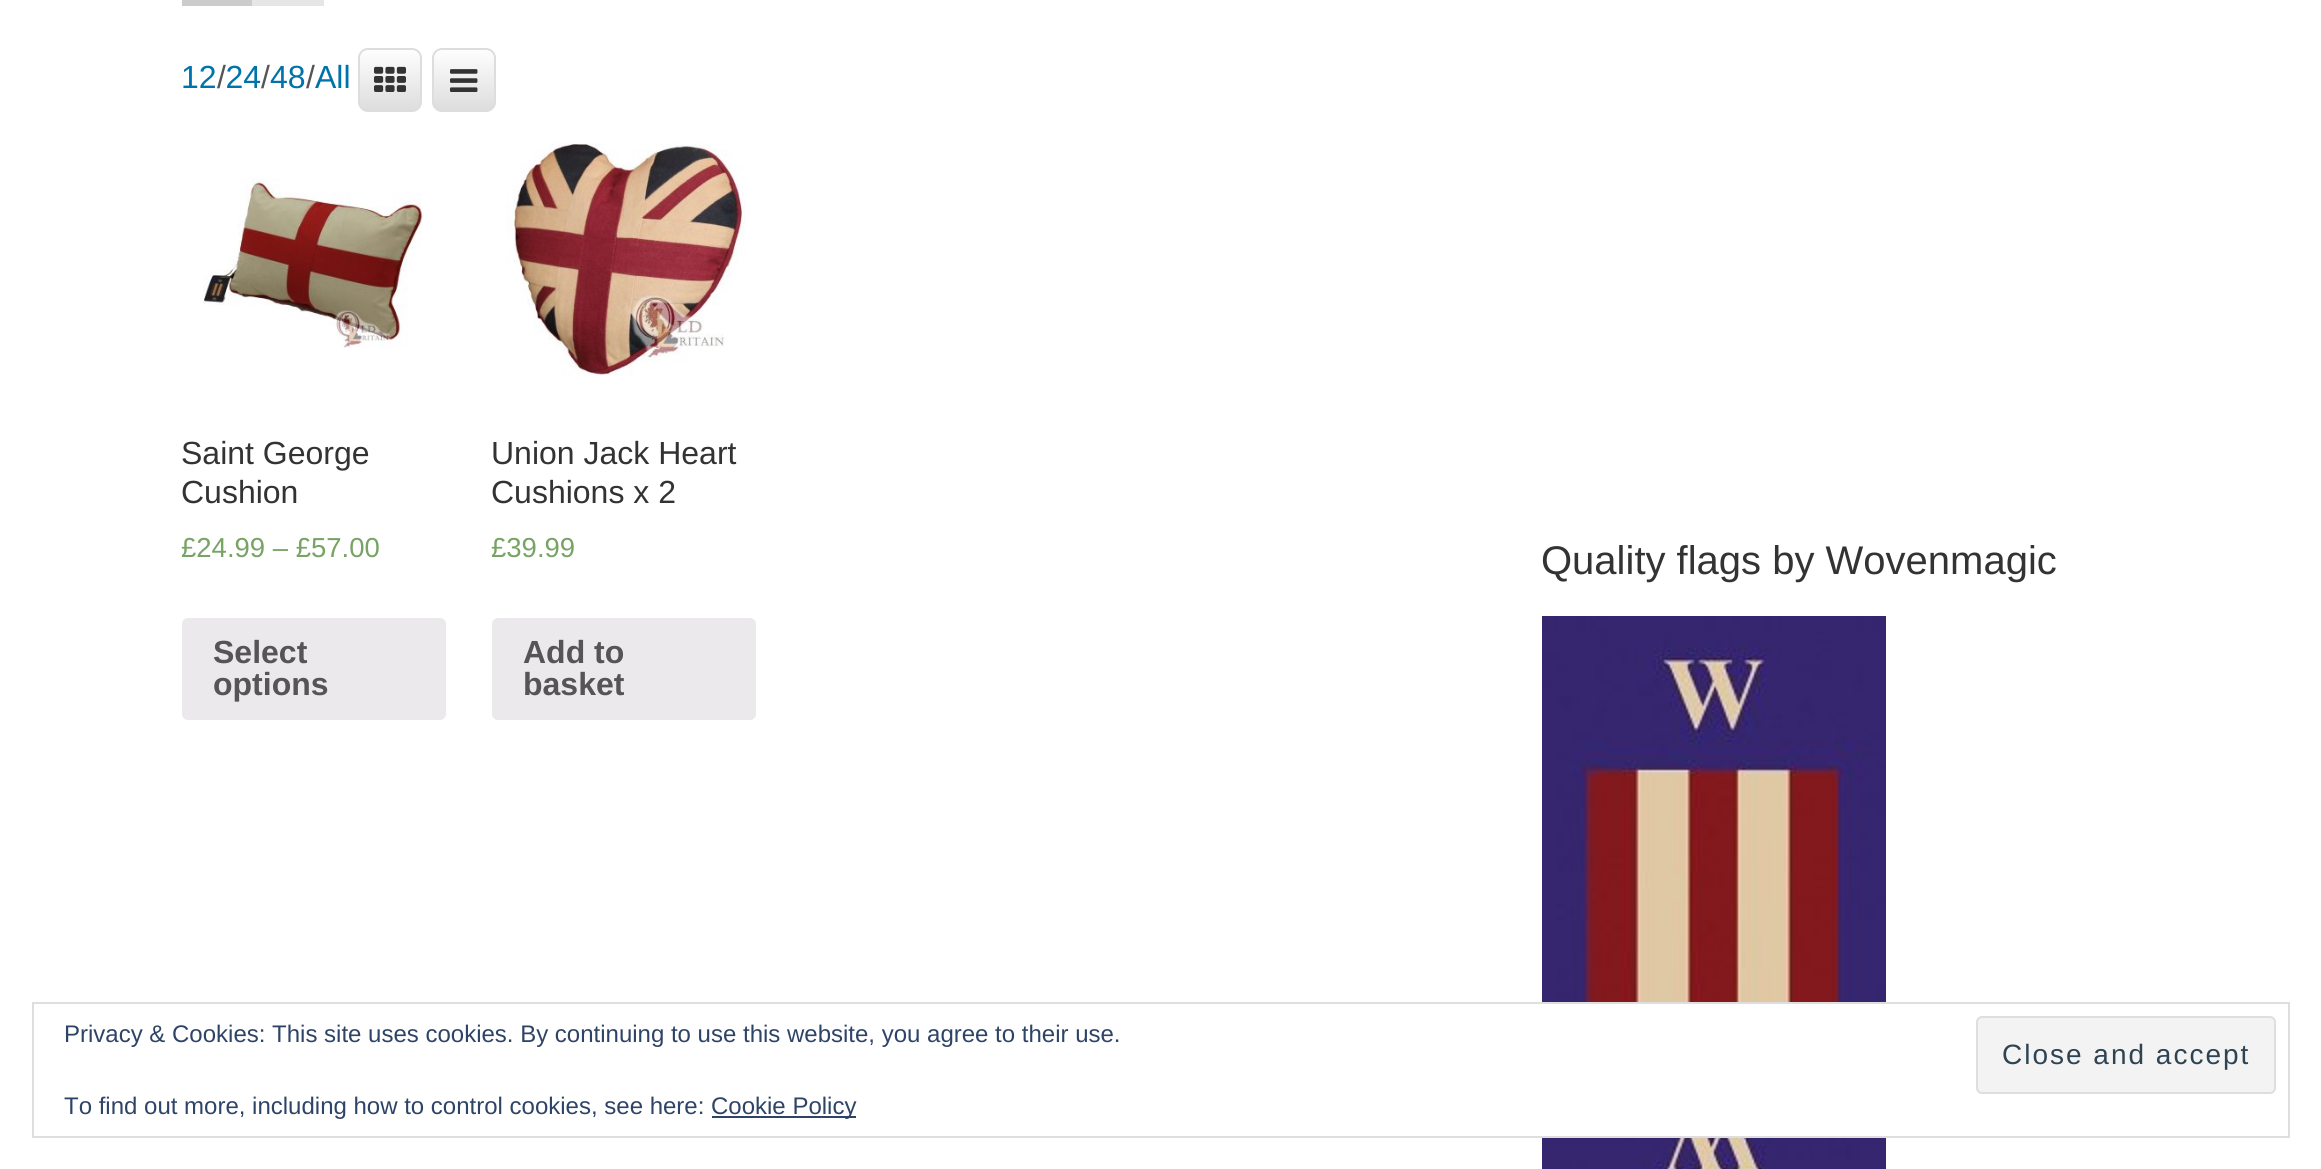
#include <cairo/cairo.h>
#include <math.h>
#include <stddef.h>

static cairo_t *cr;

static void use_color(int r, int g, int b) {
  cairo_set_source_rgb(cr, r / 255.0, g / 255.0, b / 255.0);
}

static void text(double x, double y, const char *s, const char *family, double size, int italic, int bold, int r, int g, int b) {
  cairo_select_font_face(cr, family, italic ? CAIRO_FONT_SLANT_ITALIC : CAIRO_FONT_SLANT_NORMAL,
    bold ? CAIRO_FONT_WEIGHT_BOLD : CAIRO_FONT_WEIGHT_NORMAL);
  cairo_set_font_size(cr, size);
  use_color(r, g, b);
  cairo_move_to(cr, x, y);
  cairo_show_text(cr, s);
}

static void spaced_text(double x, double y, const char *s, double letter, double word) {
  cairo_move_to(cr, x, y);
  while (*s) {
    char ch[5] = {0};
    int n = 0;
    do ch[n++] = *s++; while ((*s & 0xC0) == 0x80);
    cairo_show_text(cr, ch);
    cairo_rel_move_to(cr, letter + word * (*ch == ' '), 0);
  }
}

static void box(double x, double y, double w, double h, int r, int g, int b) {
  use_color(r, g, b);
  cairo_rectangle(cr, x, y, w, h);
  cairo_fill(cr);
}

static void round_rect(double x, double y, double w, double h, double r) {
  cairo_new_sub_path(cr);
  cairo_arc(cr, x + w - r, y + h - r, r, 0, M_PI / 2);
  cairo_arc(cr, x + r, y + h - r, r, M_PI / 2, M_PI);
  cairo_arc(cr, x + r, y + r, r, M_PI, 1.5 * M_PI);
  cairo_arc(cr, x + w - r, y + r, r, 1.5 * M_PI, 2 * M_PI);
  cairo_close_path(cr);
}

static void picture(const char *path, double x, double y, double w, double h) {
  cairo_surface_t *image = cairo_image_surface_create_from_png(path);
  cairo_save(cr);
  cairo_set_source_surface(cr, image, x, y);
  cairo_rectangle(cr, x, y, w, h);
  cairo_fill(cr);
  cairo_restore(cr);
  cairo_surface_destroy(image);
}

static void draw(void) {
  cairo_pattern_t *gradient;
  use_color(255, 255, 255);
  cairo_paint(cr);
  box(182, 0, 70, 6, 204, 204, 204);
  box(252, 0, 72, 6, 230, 230, 230);
  gradient = cairo_pattern_create_linear(390, 48, 390, 112);
  cairo_pattern_add_color_stop_rgba(gradient, 0, 1, 1, 1, 1);
  cairo_pattern_add_color_stop_rgba(gradient, 1, 0.863, 0.863, 0.863, 1);
  cairo_set_source(cr, gradient);
  cairo_pattern_destroy(gradient);
  round_rect(359, 49, 62, 62, 9);
  cairo_fill_preserve(cr);
  use_color(221, 221, 221);
  cairo_stroke(cr);
  picture("img_01.png", 374, 66, 32, 26);
  gradient = cairo_pattern_create_linear(464, 48, 464, 112);
  cairo_pattern_add_color_stop_rgba(gradient, 0, 1, 1, 1, 1);
  cairo_pattern_add_color_stop_rgba(gradient, 1, 0.863, 0.863, 0.863, 1);
  cairo_set_source(cr, gradient);
  cairo_pattern_destroy(gradient);
  round_rect(433, 49, 62, 62, 9);
  cairo_fill_preserve(cr);
  use_color(221, 221, 221);
  cairo_stroke(cr);
  picture("img_02.png", 450, 69, 28, 23);
  picture("img_03.png", 203, 178, 220, 170);
  use_color(235, 233, 235);
  round_rect(182, 618, 264, 102, 6);
  cairo_fill(cr);
  picture("img_04.png", 506, 143, 240, 233);
  round_rect(492, 618, 264, 102, 6);
  cairo_fill(cr);
  picture("img_05.png", 1542, 616, 344, 553);
  box(1542, 1004, 344, 132, 255, 255, 255);
  cairo_rectangle(cr, 33, 1003, 2256, 134);
  use_color(222, 222, 222);
  cairo_stroke(cr);
  use_color(243, 243, 243);
  round_rect(1977, 1017, 298, 76, 5);
  cairo_fill_preserve(cr);
  use_color(222, 222, 222);
  cairo_stroke(cr);
  box(712, 1116, 144, 2, 46, 68, 103);
  text(306, 88, "/", "Liberation Sans", 32, 0, 0, 85, 85, 85);
  text(315, 88, "All", "Liberation Sans", 32, 0, 0, 0, 115, 170);
  text(181, 88, "12 24 48", "Liberation Sans", 32, 0, 0, 0, 115, 170);
  text(261, 88, "/", "Liberation Sans", 32, 0, 0, 85, 85, 85);
  text(217, 88, "/", "Liberation Sans", 32, 0, 0, 85, 85, 85);
  text(181, 464, "Saint George", "Liberation Sans", 32, 0, 0, 51, 51, 51);
  text(181, 503, "Cushion", "Liberation Sans", 32, 0, 0, 51, 51, 51);
  text(181, 557, "£24.99 – £57.00", "Liberation Sans", 27.5, 0, 0, 119, 164, 100);
  text(213, 663, "Select", "Liberation Sans", 32, 0, 1, 85, 85, 85);
  text(213, 695, "options", "Liberation Sans", 32, 0, 1, 85, 85, 85);
  text(491, 464, "Union Jack Heart", "Liberation Sans", 32, 0, 0, 51, 51, 51);
  text(491, 503, "Cushions x 2", "Liberation Sans", 32, 0, 0, 51, 51, 51);
  text(491, 557, "£39.99", "Liberation Sans", 27.5, 0, 0, 119, 164, 100);
  text(523, 663, "Add to", "Liberation Sans", 32, 0, 1, 85, 85, 85);
  text(523, 695, "basket", "Liberation Sans", 32, 0, 1, 85, 85, 85);
  text(1541, 574, "Quality flags by Wovenmagic", "Liberation Sans", 40, 0, 0, 51, 51, 51);
  text(64, 1042, "Privacy & Cookies: This site uses cookies. By continuing to use this website, you agree to their use.", "Liberation Sans", 24, 0, 0, 46, 68, 103);
  cairo_set_font_size(cr, 28);
  use_color(46, 68, 83);
  spaced_text(2002, 1064, "Close and accept", 2, 0);
  text(64, 1114, "To find out more, including how to control cookies, see here:", "Liberation Sans", 24, 0, 0, 46, 68, 103);
  text(711, 1114, "Cookie Policy", "Liberation Sans", 24, 0, 0, 46, 68, 103);
}

int main(void) {
  cairo_surface_t *surface = cairo_image_surface_create(CAIRO_FORMAT_RGB24, 2321, 1169);
  cr = cairo_create(surface);
  cairo_font_options_t *options = cairo_font_options_create();
  cairo_font_options_set_hint_metrics(options, CAIRO_HINT_METRICS_OFF);
  cairo_font_options_set_hint_style(options, CAIRO_HINT_STYLE_NONE);
  cairo_set_font_options(cr, options);
  cairo_set_miter_limit(cr, 4);
  draw();
  cairo_surface_write_to_png(surface, "out.png");
  cairo_font_options_destroy(options);
  cairo_destroy(cr);
  cairo_surface_destroy(surface);
  return 0;
}
